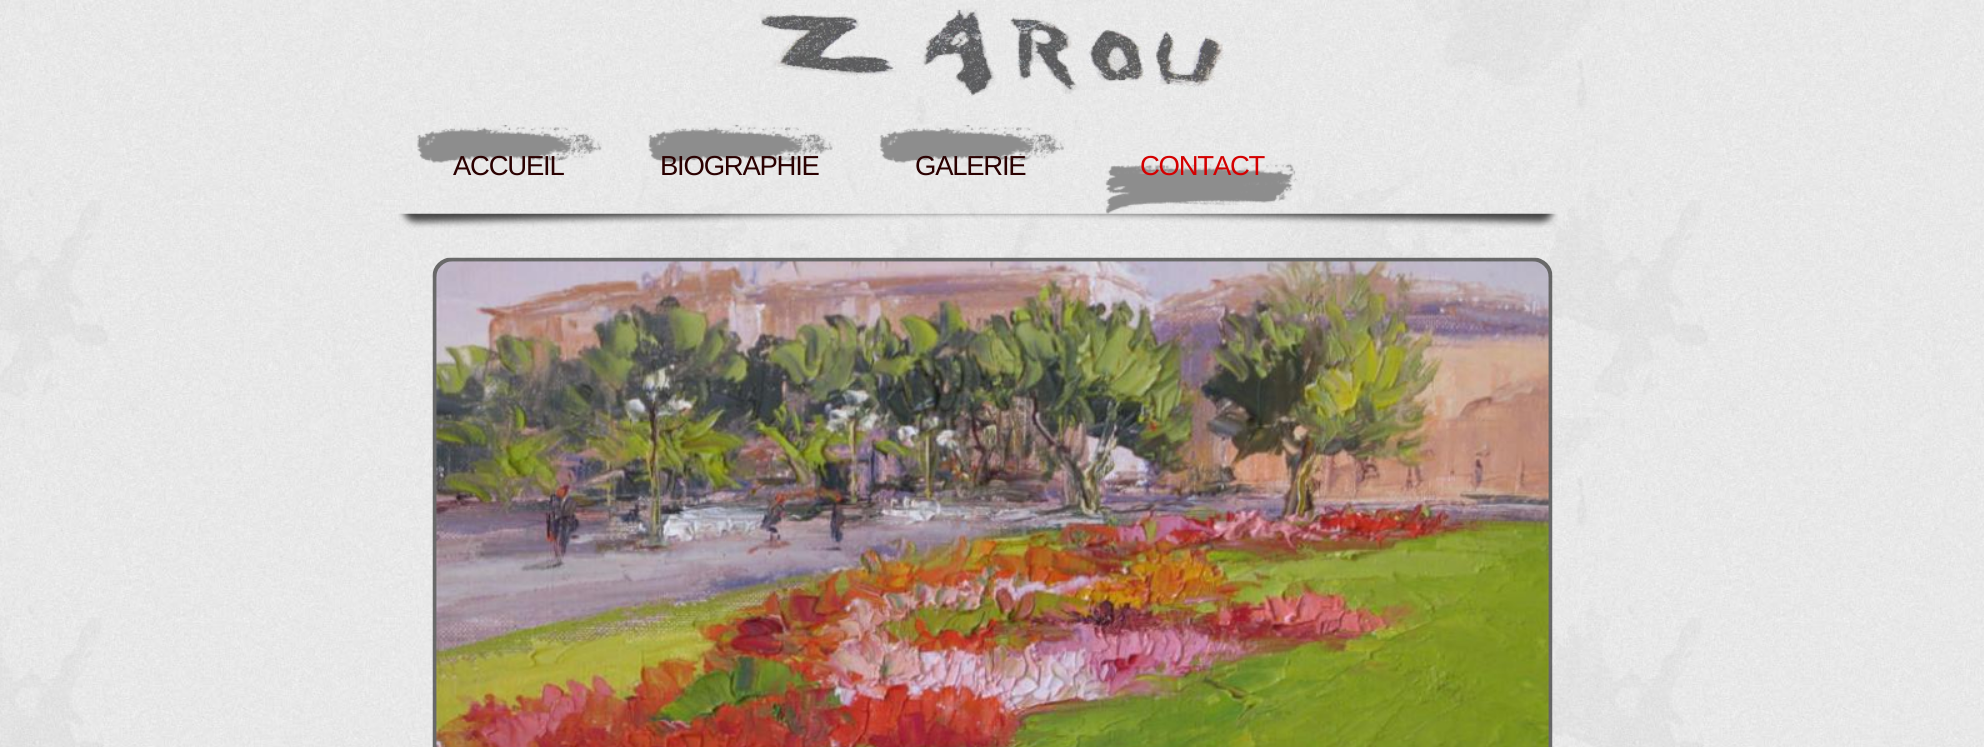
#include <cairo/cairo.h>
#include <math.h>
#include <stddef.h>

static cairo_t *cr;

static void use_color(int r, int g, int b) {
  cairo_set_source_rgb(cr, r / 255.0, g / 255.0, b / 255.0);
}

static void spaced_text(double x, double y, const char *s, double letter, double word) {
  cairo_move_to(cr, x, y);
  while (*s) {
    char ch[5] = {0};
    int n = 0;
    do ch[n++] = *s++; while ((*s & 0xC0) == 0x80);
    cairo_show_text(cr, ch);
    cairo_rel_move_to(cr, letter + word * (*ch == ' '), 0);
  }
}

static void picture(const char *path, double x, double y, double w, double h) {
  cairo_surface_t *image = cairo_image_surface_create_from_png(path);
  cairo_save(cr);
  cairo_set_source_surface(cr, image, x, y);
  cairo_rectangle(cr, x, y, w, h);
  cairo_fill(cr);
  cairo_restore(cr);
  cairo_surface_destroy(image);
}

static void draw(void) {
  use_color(255, 255, 255);
  cairo_paint(cr);
  picture("img_01.png", 0, 0, 1984, 747);
  picture("img_02.png", 756, 0, 474, 96);
  picture("img_03.png", 398, 213, 1160, 15);
  picture("img_04.png", 417, 124, 185, 39);
  picture("img_05.png", 648, 124, 186, 39);
  picture("img_06.png", 879, 124, 186, 39);
  picture("img_07.png", 1105, 163, 193, 51);
  picture("img_08.png", 432, 257, 1121, 490);
  picture("img_09.png", 436, 261, 1113, 486);
  cairo_select_font_face(cr, "Liberation Sans", CAIRO_FONT_SLANT_NORMAL, CAIRO_FONT_WEIGHT_NORMAL);
  cairo_set_font_size(cr, 27.5);
  use_color(42, 0, 0);
  spaced_text(453, 175, "ACCUEIL", -1.25, 0);
  spaced_text(660, 175, "BIOGRAPHIE", -1.25, 0);
  spaced_text(915, 175, "GALERIE", -1.25, 0);
  use_color(212, 0, 0);
  spaced_text(1140, 175, "CONTACT", -1.25, 0);
}

int main(void) {
  cairo_surface_t *surface = cairo_image_surface_create(CAIRO_FORMAT_RGB24, 1984, 747);
  cr = cairo_create(surface);
  cairo_font_options_t *options = cairo_font_options_create();
  cairo_font_options_set_hint_metrics(options, CAIRO_HINT_METRICS_OFF);
  cairo_font_options_set_hint_style(options, CAIRO_HINT_STYLE_NONE);
  cairo_set_font_options(cr, options);
  cairo_set_miter_limit(cr, 4);
  draw();
  cairo_surface_write_to_png(surface, "out.png");
  cairo_font_options_destroy(options);
  cairo_destroy(cr);
  cairo_surface_destroy(surface);
  return 0;
}
